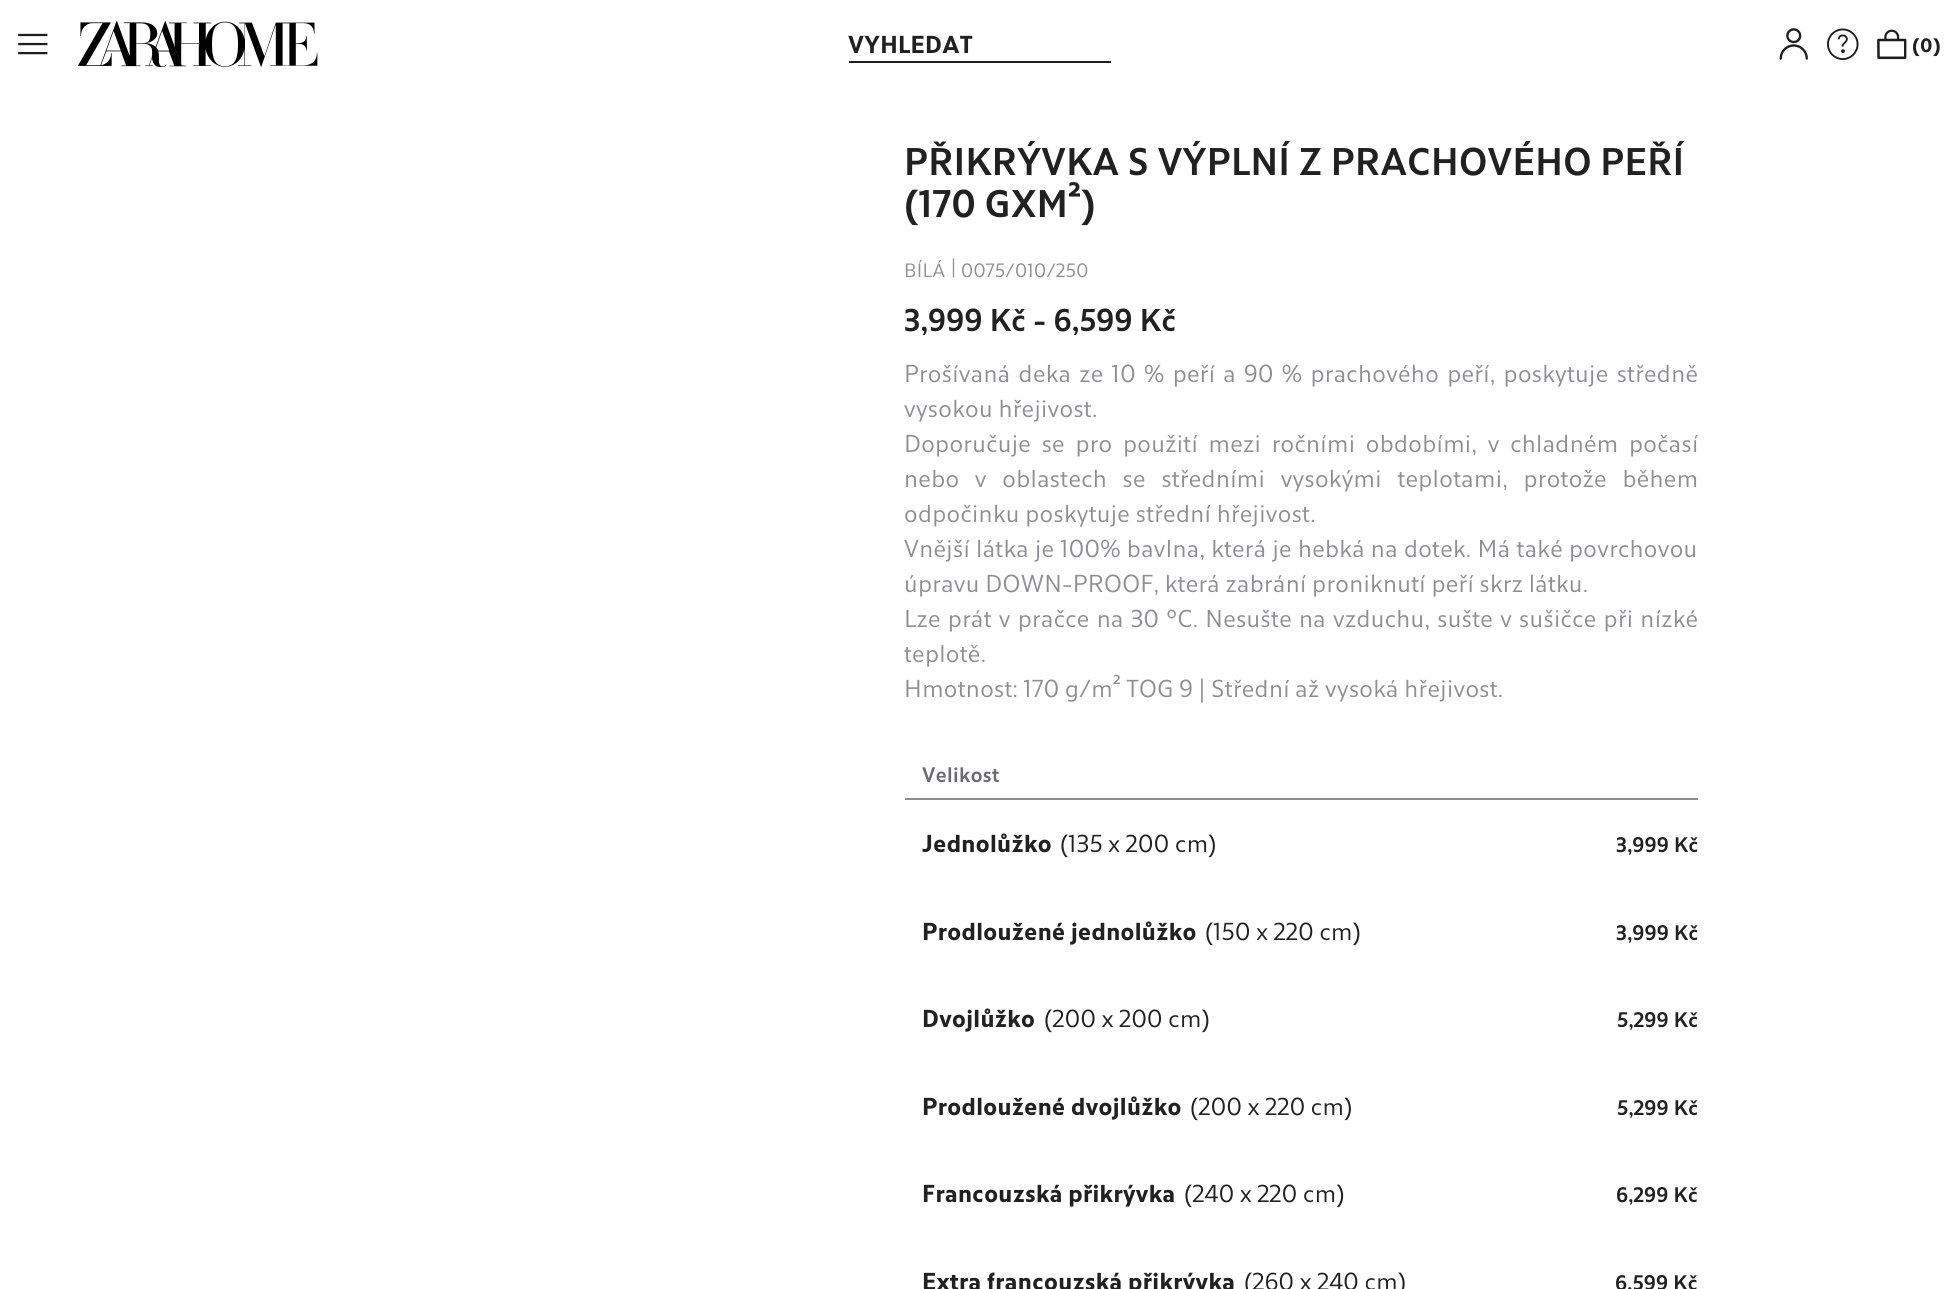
#include <cairo/cairo.h>
#include <math.h>
#include <stddef.h>

static cairo_t *cr;

static void use_color(int r, int g, int b) {
  cairo_set_source_rgb(cr, r / 255.0, g / 255.0, b / 255.0);
}

static void spaced_text(double x, double y, const char *s, double letter, double word) {
  cairo_move_to(cr, x, y);
  while (*s) {
    char ch[5] = {0};
    int n = 0;
    do ch[n++] = *s++; while ((*s & 0xC0) == 0x80);
    cairo_show_text(cr, ch);
    cairo_rel_move_to(cr, letter + word * (*ch == ' '), 0);
  }
}

static void box(double x, double y, double w, double h, int r, int g, int b) {
  use_color(r, g, b);
  cairo_rectangle(cr, x, y, w, h);
  cairo_fill(cr);
}

static void picture(const char *path, double x, double y, double w, double h) {
  cairo_surface_t *image = cairo_image_surface_create_from_png(path);
  cairo_save(cr);
  cairo_set_source_surface(cr, image, x, y);
  cairo_rectangle(cr, x, y, w, h);
  cairo_fill(cr);
  cairo_restore(cr);
  cairo_surface_destroy(image);
}

static void draw(void) {
  use_color(255, 255, 255);
  cairo_paint(cr);
  picture("img_01.png", 18, 33, 30, 22);
  picture("img_02.png", 77, 21, 241, 46);
  box(849, 61, 262, 2, 30, 30, 30);
  picture("img_03.png", 1779, 28, 29, 32);
  picture("img_04.png", 1827, 28, 32, 32);
  picture("img_05.png", 1877, 29, 30, 31);
  box(905, 798, 793, 2, 142, 142, 147);
  cairo_select_font_face(cr, "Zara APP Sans", CAIRO_FONT_SLANT_NORMAL, CAIRO_FONT_WEIGHT_BOLD);
  cairo_set_font_size(cr, 24.5);
  use_color(33, 33, 33);
  spaced_text(848, 53, "VYHLEDAT", 0.35, 0);
  cairo_set_font_size(cr, 19.25);
  spaced_text(1912, 52, "(0)", 0.35, 0);
  cairo_select_font_face(cr, "Zara APP Sans SemiBold", CAIRO_FONT_SLANT_NORMAL, CAIRO_FONT_WEIGHT_NORMAL);
  cairo_set_font_size(cr, 38.5);
  spaced_text(904, 175, "PŘIKRÝVKA S VÝPLNÍ Z PRACHOVÉHO PEŘÍ", 0.35, 0);
  spaced_text(904, 217, "(170 GXM²)", 0.35, 0);
  cairo_select_font_face(cr, "Zara APP Sans", CAIRO_FONT_SLANT_NORMAL, CAIRO_FONT_WEIGHT_NORMAL);
  cairo_set_font_size(cr, 19.25);
  use_color(142, 142, 147);
  spaced_text(904, 277, "BÍLÁ", 0.35, 0);
  spaced_text(951, 273, "|", 0.35, 0);
  spaced_text(961, 277, "0075/010/250", 0.35, 0);
  cairo_select_font_face(cr, "Zara APP Sans SemiBold", CAIRO_FONT_SLANT_NORMAL, CAIRO_FONT_WEIGHT_NORMAL);
  cairo_set_font_size(cr, 31.5);
  use_color(33, 33, 33);
  spaced_text(904, 331, "3,999 Kč - 6,599 Kč", 0.35, 0);
  cairo_select_font_face(cr, "Zara APP Sans", CAIRO_FONT_SLANT_NORMAL, CAIRO_FONT_WEIGHT_NORMAL);
  cairo_set_font_size(cr, 24.5);
  use_color(142, 142, 147);
  spaced_text(904, 382, "Prošívaná deka ze 10 % peří a 90 % prachového peří, poskytuje středně", 0.35, 2.6);
  spaced_text(904, 417, "vysokou hřejivost.", 0.35, 0);
  spaced_text(904, 452, "Doporučuje se pro použití mezi ročními obdobími, v chladném počasí", 0.35, 5);
  spaced_text(904, 487, "nebo v oblastech se středními vysokými teplotami, protože během", 0.35, 10);
  spaced_text(904, 522, "odpočinku poskytuje střední hřejivost.", 0.35, 0);
  spaced_text(904, 557, "Vnější látka je 100% bavlna, která je hebká na dotek. Má také povrchovou", 0.35, 0.5);
  spaced_text(904, 592, "úpravu DOWN-PROOF, která zabrání proniknutí peří skrz látku.", 0.35, 0);
  spaced_text(904, 627, "Lze prát v pračce na 30 ºC. Nesušte na vzduchu, sušte v sušičce při nízké", 0.35, 1.5);
  spaced_text(904, 662, "teplotě.", 0.35, 0);
  spaced_text(904, 697, "Hmotnost: 170 g/m² TOG 9 | Střední až vysoká hřejivost.", 0.35, 0);
  cairo_select_font_face(cr, "Zara APP Sans SemiBold", CAIRO_FONT_SLANT_NORMAL, CAIRO_FONT_WEIGHT_NORMAL);
  cairo_set_font_size(cr, 21);
  use_color(108, 108, 112);
  spaced_text(922, 782, "Velikost", 0.35, 0);
  cairo_select_font_face(cr, "Zara APP Sans", CAIRO_FONT_SLANT_NORMAL, CAIRO_FONT_WEIGHT_BOLD);
  cairo_set_font_size(cr, 24.5);
  use_color(33, 33, 33);
  spaced_text(922, 852, "Jednolůžko", 0.35, 0);
  cairo_select_font_face(cr, "Zara APP Sans", CAIRO_FONT_SLANT_NORMAL, CAIRO_FONT_WEIGHT_NORMAL);
  spaced_text(1060, 852, "(135 x 200 cm)", 0.35, 0);
  cairo_select_font_face(cr, "Zara APP Sans SemiBold", CAIRO_FONT_SLANT_NORMAL, CAIRO_FONT_WEIGHT_NORMAL);
  cairo_set_font_size(cr, 21);
  spaced_text(1616, 852, "3,999 Kč", 0.35, 0);
  cairo_select_font_face(cr, "Zara APP Sans", CAIRO_FONT_SLANT_NORMAL, CAIRO_FONT_WEIGHT_BOLD);
  cairo_set_font_size(cr, 24.5);
  spaced_text(922, 940, "Prodloužené jednolůžko", 0.35, 0);
  cairo_select_font_face(cr, "Zara APP Sans", CAIRO_FONT_SLANT_NORMAL, CAIRO_FONT_WEIGHT_NORMAL);
  spaced_text(1205, 940, "(150 x 220 cm)", 0.35, 0);
  cairo_select_font_face(cr, "Zara APP Sans SemiBold", CAIRO_FONT_SLANT_NORMAL, CAIRO_FONT_WEIGHT_NORMAL);
  cairo_set_font_size(cr, 21);
  spaced_text(1616, 940, "3,999 Kč", 0.35, 0);
  cairo_select_font_face(cr, "Zara APP Sans", CAIRO_FONT_SLANT_NORMAL, CAIRO_FONT_WEIGHT_BOLD);
  cairo_set_font_size(cr, 24.5);
  spaced_text(922, 1027, "Dvojlůžko", 0.35, 0);
  cairo_select_font_face(cr, "Zara APP Sans", CAIRO_FONT_SLANT_NORMAL, CAIRO_FONT_WEIGHT_NORMAL);
  spaced_text(1044, 1027, "(200 x 200 cm)", 0.35, 0);
  cairo_select_font_face(cr, "Zara APP Sans SemiBold", CAIRO_FONT_SLANT_NORMAL, CAIRO_FONT_WEIGHT_NORMAL);
  cairo_set_font_size(cr, 21);
  spaced_text(1617, 1027, "5,299 Kč", 0.35, 0);
  cairo_select_font_face(cr, "Zara APP Sans", CAIRO_FONT_SLANT_NORMAL, CAIRO_FONT_WEIGHT_BOLD);
  cairo_set_font_size(cr, 24.5);
  spaced_text(922, 1115, "Prodloužené dvojlůžko", 0.35, 0);
  cairo_select_font_face(cr, "Zara APP Sans", CAIRO_FONT_SLANT_NORMAL, CAIRO_FONT_WEIGHT_NORMAL);
  spaced_text(1190, 1115, "(200 x 220 cm)", 0.35, 0);
  cairo_select_font_face(cr, "Zara APP Sans SemiBold", CAIRO_FONT_SLANT_NORMAL, CAIRO_FONT_WEIGHT_NORMAL);
  cairo_set_font_size(cr, 21);
  spaced_text(1617, 1115, "5,299 Kč", 0.35, 0);
  cairo_select_font_face(cr, "Zara APP Sans", CAIRO_FONT_SLANT_NORMAL, CAIRO_FONT_WEIGHT_BOLD);
  cairo_set_font_size(cr, 24.5);
  spaced_text(922, 1202, "Francouzská přikrývka", 0.35, 0);
  cairo_select_font_face(cr, "Zara APP Sans", CAIRO_FONT_SLANT_NORMAL, CAIRO_FONT_WEIGHT_NORMAL);
  spaced_text(1184, 1202, "(240 x 220 cm)", 0.35, 0);
  cairo_select_font_face(cr, "Zara APP Sans SemiBold", CAIRO_FONT_SLANT_NORMAL, CAIRO_FONT_WEIGHT_NORMAL);
  cairo_set_font_size(cr, 21);
  spaced_text(1616, 1202, "6,299 Kč", 0.35, 0);
  cairo_select_font_face(cr, "Zara APP Sans", CAIRO_FONT_SLANT_NORMAL, CAIRO_FONT_WEIGHT_BOLD);
  cairo_set_font_size(cr, 24.5);
  spaced_text(922, 1290, "Extra francouzská přikrývka", 0.35, 0);
  cairo_select_font_face(cr, "Zara APP Sans", CAIRO_FONT_SLANT_NORMAL, CAIRO_FONT_WEIGHT_NORMAL);
  spaced_text(1244, 1290, "(260 x 240 cm)", 0.35, 0);
  cairo_select_font_face(cr, "Zara APP Sans SemiBold", CAIRO_FONT_SLANT_NORMAL, CAIRO_FONT_WEIGHT_NORMAL);
  cairo_set_font_size(cr, 21);
  spaced_text(1615, 1290, "6,599 Kč", 0.35, 0);
}

int main(void) {
  cairo_surface_t *surface = cairo_image_surface_create(CAIRO_FORMAT_RGB24, 1957, 1289);
  cr = cairo_create(surface);
  cairo_font_options_t *options = cairo_font_options_create();
  cairo_font_options_set_hint_metrics(options, CAIRO_HINT_METRICS_OFF);
  cairo_font_options_set_hint_style(options, CAIRO_HINT_STYLE_NONE);
  cairo_set_font_options(cr, options);
  cairo_set_miter_limit(cr, 4);
  draw();
  cairo_surface_write_to_png(surface, "out.png");
  cairo_font_options_destroy(options);
  cairo_destroy(cr);
  cairo_surface_destroy(surface);
  return 0;
}
